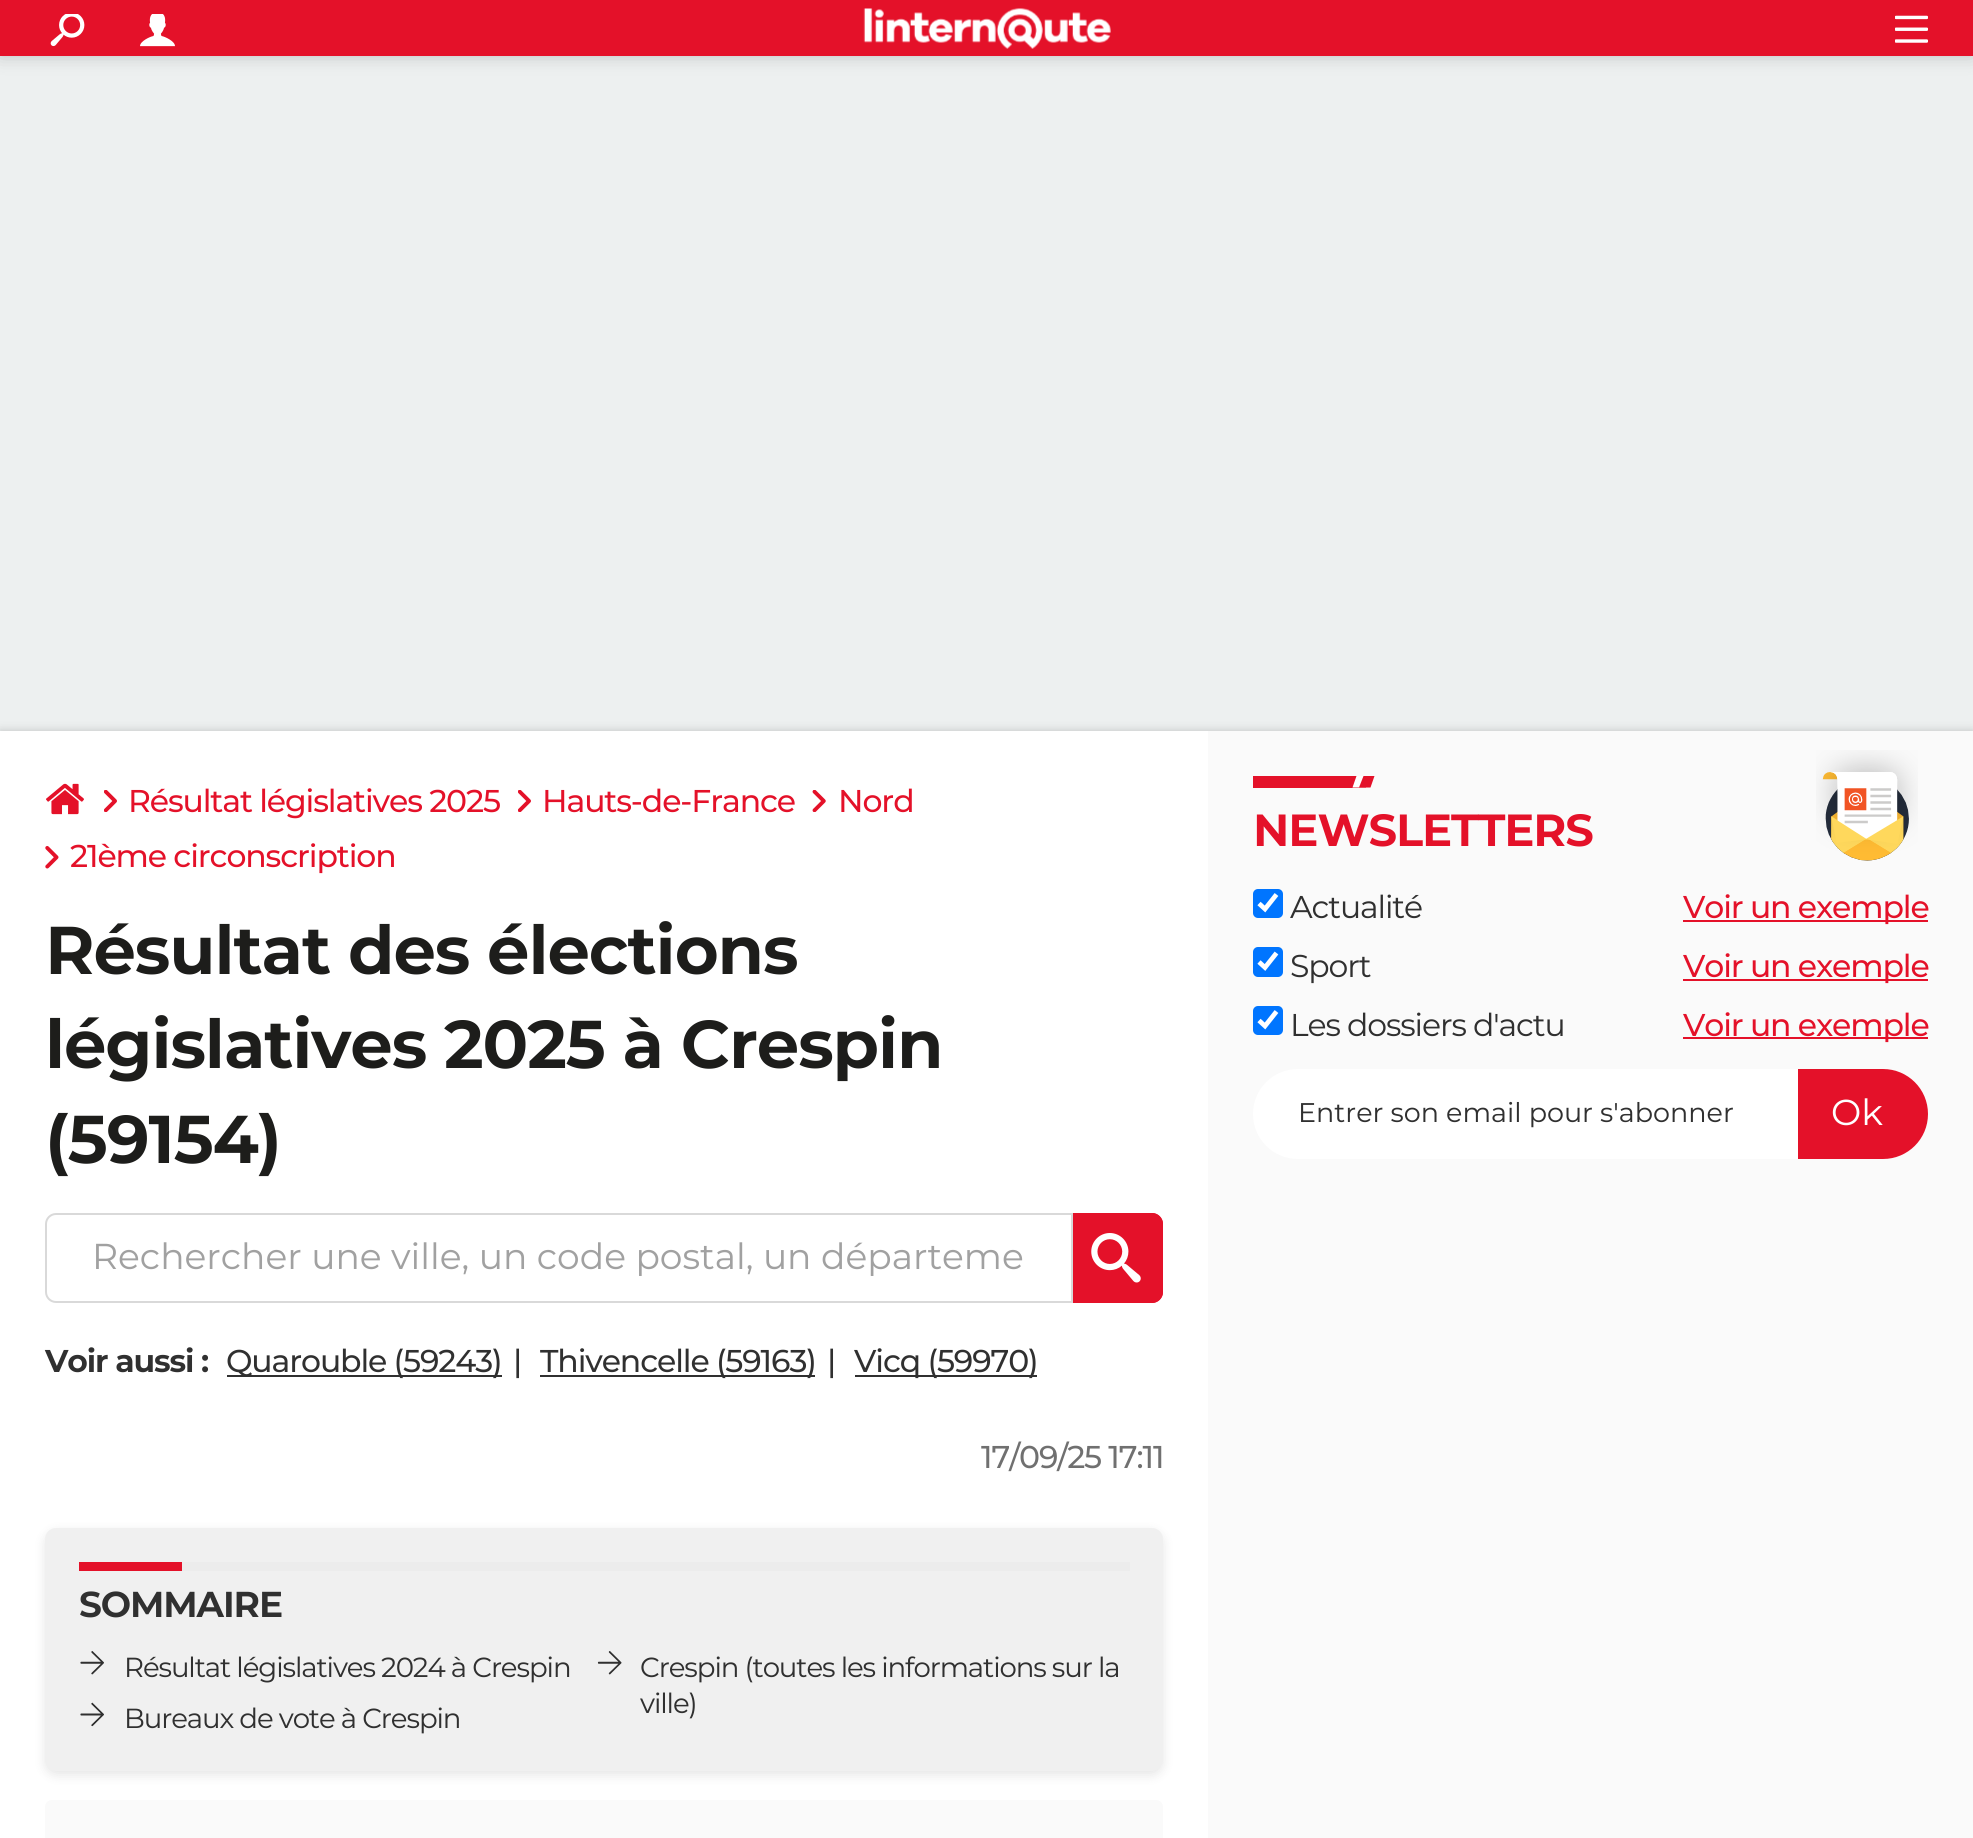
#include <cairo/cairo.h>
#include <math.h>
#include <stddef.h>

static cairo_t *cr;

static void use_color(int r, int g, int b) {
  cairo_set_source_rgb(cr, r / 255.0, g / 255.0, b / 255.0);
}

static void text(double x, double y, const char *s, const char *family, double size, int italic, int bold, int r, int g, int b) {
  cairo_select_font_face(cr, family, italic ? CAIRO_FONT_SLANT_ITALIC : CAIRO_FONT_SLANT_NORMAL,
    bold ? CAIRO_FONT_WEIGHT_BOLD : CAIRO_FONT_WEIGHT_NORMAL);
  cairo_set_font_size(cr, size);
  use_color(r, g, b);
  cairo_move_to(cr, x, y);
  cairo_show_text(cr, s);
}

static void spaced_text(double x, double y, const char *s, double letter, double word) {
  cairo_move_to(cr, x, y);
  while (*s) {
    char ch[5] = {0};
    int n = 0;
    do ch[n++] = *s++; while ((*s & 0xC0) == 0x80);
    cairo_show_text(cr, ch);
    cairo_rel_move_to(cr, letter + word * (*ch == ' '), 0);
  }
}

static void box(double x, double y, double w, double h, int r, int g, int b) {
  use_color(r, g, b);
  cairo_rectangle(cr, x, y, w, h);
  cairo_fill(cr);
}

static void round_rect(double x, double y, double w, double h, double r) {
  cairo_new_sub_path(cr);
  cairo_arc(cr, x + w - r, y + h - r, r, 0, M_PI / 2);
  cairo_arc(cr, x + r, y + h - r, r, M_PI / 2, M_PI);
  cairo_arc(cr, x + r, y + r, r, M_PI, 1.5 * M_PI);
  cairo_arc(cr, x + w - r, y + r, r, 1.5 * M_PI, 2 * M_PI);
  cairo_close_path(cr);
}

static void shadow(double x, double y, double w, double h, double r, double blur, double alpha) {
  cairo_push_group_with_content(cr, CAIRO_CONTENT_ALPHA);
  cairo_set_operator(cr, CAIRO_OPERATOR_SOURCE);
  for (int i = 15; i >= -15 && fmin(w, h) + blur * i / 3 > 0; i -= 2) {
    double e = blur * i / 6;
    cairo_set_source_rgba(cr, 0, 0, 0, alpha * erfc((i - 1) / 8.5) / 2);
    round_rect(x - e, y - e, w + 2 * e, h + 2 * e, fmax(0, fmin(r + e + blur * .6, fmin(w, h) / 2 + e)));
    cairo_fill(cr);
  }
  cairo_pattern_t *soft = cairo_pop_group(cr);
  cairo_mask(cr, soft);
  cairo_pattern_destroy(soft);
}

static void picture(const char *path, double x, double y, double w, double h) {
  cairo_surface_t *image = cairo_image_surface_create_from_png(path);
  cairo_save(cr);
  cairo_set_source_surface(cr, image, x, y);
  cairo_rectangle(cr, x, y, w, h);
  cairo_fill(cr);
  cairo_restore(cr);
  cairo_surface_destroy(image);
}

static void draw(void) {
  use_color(237, 240, 240);
  cairo_paint(cr);
  use_color(0, 0, 0);
  shadow(0, 0, 1973, 56, 0, 9, 0.2);
  box(0, 0, 1973, 56, 228, 17, 41);
  picture("img_01.png", 50, 14, 35, 33);
  picture("img_02.png", 140, 14, 35, 33);
  picture("img_03.png", 863, 8, 248, 41);
  picture("img_04.png", 1895, 15, 33, 28);
  use_color(0, 0, 0);
  shadow(0, 731, 1973, 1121, 0, 4.5, 0.2);
  box(1208, 731, 765, 1107, 250, 250, 250);
  box(0, 731, 1208, 1107, 255, 255, 255);
  picture("img_05.png", 46, 783, 38, 32);
  picture("img_06.png", 104, 790, 13, 22);
  picture("img_06.png", 518, 790, 13, 22);
  picture("img_07.png", 812, 790, 14, 22);
  picture("img_08.png", 45, 846, 14, 23);
  cairo_new_path(cr);
  cairo_move_to(cr, 56, 1214);
  cairo_line_to(cr, 1072, 1214);
  cairo_line_to(cr, 1072, 1302);
  cairo_line_to(cr, 56, 1302);
  cairo_curve_to(cr, 50.5, 1302, 46, 1297.5, 46, 1292);
  cairo_line_to(cr, 46, 1224);
  cairo_curve_to(cr, 46, 1218.5, 50.5, 1214, 56, 1214);
  cairo_close_path(cr);
  use_color(217, 217, 217);
  cairo_stroke(cr);
  use_color(228, 17, 41);
  cairo_new_path(cr);
  cairo_move_to(cr, 1073, 1213);
  cairo_line_to(cr, 1152, 1213);
  cairo_curve_to(cr, 1158, 1213, 1163, 1218, 1163, 1224);
  cairo_line_to(cr, 1163, 1292);
  cairo_curve_to(cr, 1163, 1298, 1158, 1303, 1152, 1303);
  cairo_line_to(cr, 1073, 1303);
  cairo_close_path(cr);
  cairo_fill(cr);
  picture("img_09.png", 1091, 1233, 50, 50);
  cairo_new_path(cr);
  cairo_move_to(cr, 1074, 1214);
  cairo_line_to(cr, 1152, 1214);
  cairo_curve_to(cr, 1157.5, 1214, 1162, 1218.5, 1162, 1224);
  cairo_line_to(cr, 1162, 1292);
  cairo_curve_to(cr, 1162, 1297.5, 1157.5, 1302, 1152, 1302);
  cairo_line_to(cr, 1074, 1302);
  cairo_close_path(cr);
  cairo_stroke(cr);
  box(227, 1375, 275, 2, 48, 48, 48);
  box(540, 1375, 275, 2, 48, 48, 48);
  box(855, 1375, 182, 2, 48, 48, 48);
  use_color(0, 0, 0);
  shadow(45, 1532, 1118, 243, 11, 5.5, 0.1);
  use_color(240, 240, 240);
  round_rect(45, 1528, 1118, 243, 11);
  cairo_fill(cr);
  box(182, 1562, 948, 9, 236, 236, 236);
  box(79, 1562, 103, 9, 228, 17, 41);
  picture("img_10.png", 80, 1651, 24, 24);
  picture("img_11.png", 597, 1651, 25, 24);
  picture("img_12.png", 80, 1702, 24, 25);
  use_color(250, 250, 250);
  round_rect(45, 1800, 1118, 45, 7);
  cairo_fill(cr);
  box(1253, 776, 113, 12, 228, 17, 41);
  use_color(255, 255, 255);
  cairo_new_path(cr);
  cairo_move_to(cr, 1356.5, 776);
  cairo_line_to(cr, 1374.5, 776);
  cairo_line_to(cr, 1370.5, 787.5);
  cairo_line_to(cr, 1352.5, 787.5);
  cairo_close_path(cr);
  cairo_fill(cr);
  use_color(228, 17, 41);
  cairo_new_path(cr);
  cairo_move_to(cr, 1363.5, 776);
  cairo_line_to(cr, 1374.5, 776);
  cairo_line_to(cr, 1370.5, 787.5);
  cairo_line_to(cr, 1359, 787.5);
  cairo_close_path(cr);
  cairo_fill(cr);
  picture("img_13.png", 1816, 750, 102, 111);
  use_color(0, 117, 255);
  round_rect(1253, 889, 30, 29, 5);
  cairo_fill(cr);
  cairo_new_path(cr);
  cairo_move_to(cr, 1259, 903.5);
  cairo_line_to(cr, 1265, 909);
  cairo_line_to(cr, 1276.5, 894.5);
  use_color(255, 255, 255);
  cairo_set_line_width(cr, 4.7);
  cairo_stroke(cr);
  box(1683, 920, 245, 2, 228, 17, 41);
  use_color(0, 117, 255);
  round_rect(1253, 947, 30, 30, 5);
  cairo_fill(cr);
  cairo_new_path(cr);
  cairo_move_to(cr, 1259, 962);
  cairo_line_to(cr, 1265, 967.5);
  cairo_line_to(cr, 1276.5, 953);
  use_color(255, 255, 255);
  cairo_stroke(cr);
  box(1683, 979, 245, 2, 228, 17, 41);
  use_color(0, 117, 255);
  round_rect(1253, 1006, 30, 29, 5);
  cairo_fill(cr);
  cairo_new_path(cr);
  cairo_move_to(cr, 1259, 1020.5);
  cairo_line_to(cr, 1265, 1026);
  cairo_line_to(cr, 1276.5, 1011.5);
  use_color(255, 255, 255);
  cairo_stroke(cr);
  box(1683, 1037, 245, 2, 228, 17, 41);
  use_color(255, 255, 255);
  round_rect(1253, 1069, 675, 90, 45);
  cairo_fill(cr);
  use_color(228, 17, 41);
  cairo_new_path(cr);
  cairo_move_to(cr, 1800.5, 1071.5);
  cairo_line_to(cr, 1883, 1071.5);
  cairo_curve_to(cr, 1906.5, 1071.5, 1925.5, 1090.5, 1925.5, 1114);
  cairo_curve_to(cr, 1925.5, 1137.5, 1906.5, 1156.5, 1883, 1156.5);
  cairo_line_to(cr, 1800.5, 1156.5);
  cairo_close_path(cr);
  cairo_fill_preserve(cr);
  cairo_set_line_width(cr, 5);
  cairo_stroke(cr);
  cairo_select_font_face(cr, "Montserrat Medium", CAIRO_FONT_SLANT_NORMAL, CAIRO_FONT_WEIGHT_NORMAL);
  cairo_set_font_size(cr, 31.5);
  spaced_text(128, 812, "Résultat législatives 2025", -1.1, 0);
  spaced_text(542, 812, "Hauts-de-France", -1.1, 0);
  spaced_text(838, 812, "Nord", -1.1, 0);
  spaced_text(70, 867, "21ème circonscription", -1.1, 0);
  cairo_select_font_face(cr, "Montserrat", CAIRO_FONT_SLANT_NORMAL, CAIRO_FONT_WEIGHT_BOLD);
  cairo_set_font_size(cr, 67.5);
  use_color(29, 29, 27);
  spaced_text(45, 974, "Résultat des élections", -1.1, 0);
  spaced_text(45, 1068, "législatives 2025 à Crespin", -1.1, 0);
  spaced_text(45, 1163, "(59154)", -1.1, 0);
  text(92, 1269, "Rechercher une ville, un code postal, un départeme", "Montserrat", 36, 0, 0, 161, 161, 161);
  cairo_select_font_face(cr, "Montserrat", CAIRO_FONT_SLANT_NORMAL, CAIRO_FONT_WEIGHT_BOLD);
  cairo_set_font_size(cr, 31.5);
  use_color(48, 48, 48);
  spaced_text(45, 1372, "Voir aussi :", -1.1, 0);
  cairo_select_font_face(cr, "Montserrat Medium", CAIRO_FONT_SLANT_NORMAL, CAIRO_FONT_WEIGHT_NORMAL);
  spaced_text(226, 1372, "Quarouble (59243)", -1.1, 0);
  spaced_text(513, 1372, "|", -1.1, 0);
  spaced_text(540, 1372, "Thivencelle (59163)", -1.1, 0);
  spaced_text(827, 1372, "|", -1.1, 0);
  spaced_text(854, 1372, "Vicq (59970)", -1.1, 0);
  use_color(112, 112, 112);
  spaced_text(981, 1468, "17/09/25 17:11", -1.1, 0);
  cairo_select_font_face(cr, "Montserrat", CAIRO_FONT_SLANT_NORMAL, CAIRO_FONT_WEIGHT_BOLD);
  cairo_set_font_size(cr, 36);
  use_color(48, 48, 48);
  spaced_text(79, 1617, "SOMMAIRE", -1.1, 0);
  cairo_select_font_face(cr, "Montserrat", CAIRO_FONT_SLANT_NORMAL, CAIRO_FONT_WEIGHT_NORMAL);
  cairo_set_font_size(cr, 27.6);
  spaced_text(124, 1677, "Résultat législatives 2024 à Crespin", -1.1, 0);
  spaced_text(640, 1677, "Crespin (toutes les informations sur la", -1.1, 0);
  spaced_text(640, 1713, "ville)", -1.1, 0);
  spaced_text(124, 1728, "Bureaux de vote à Crespin", -1.1, 0);
  cairo_select_font_face(cr, "Montserrat", CAIRO_FONT_SLANT_NORMAL, CAIRO_FONT_WEIGHT_BOLD);
  cairo_set_font_size(cr, 45);
  use_color(228, 17, 41);
  spaced_text(1253, 846, "NEWSLETTERS", -1.1, 0);
  cairo_select_font_face(cr, "Montserrat", CAIRO_FONT_SLANT_NORMAL, CAIRO_FONT_WEIGHT_NORMAL);
  cairo_set_font_size(cr, 31.5);
  use_color(48, 48, 48);
  spaced_text(1290, 918, "Actualité", -1.1, 0);
  cairo_select_font_face(cr, "Montserrat Medium", CAIRO_FONT_SLANT_NORMAL, CAIRO_FONT_WEIGHT_NORMAL);
  use_color(228, 17, 41);
  spaced_text(1683, 918, "Voir un exemple", -1.1, 0);
  cairo_select_font_face(cr, "Montserrat", CAIRO_FONT_SLANT_NORMAL, CAIRO_FONT_WEIGHT_NORMAL);
  use_color(48, 48, 48);
  spaced_text(1290, 977, "Sport", -1.1, 0);
  cairo_select_font_face(cr, "Montserrat Medium", CAIRO_FONT_SLANT_NORMAL, CAIRO_FONT_WEIGHT_NORMAL);
  use_color(228, 17, 41);
  spaced_text(1683, 977, "Voir un exemple", -1.1, 0);
  cairo_select_font_face(cr, "Montserrat", CAIRO_FONT_SLANT_NORMAL, CAIRO_FONT_WEIGHT_NORMAL);
  use_color(48, 48, 48);
  spaced_text(1290, 1036, "Les dossiers d'actu", -1.1, 0);
  cairo_select_font_face(cr, "Montserrat Medium", CAIRO_FONT_SLANT_NORMAL, CAIRO_FONT_WEIGHT_NORMAL);
  use_color(228, 17, 41);
  spaced_text(1683, 1036, "Voir un exemple", -1.1, 0);
  text(1298, 1122, "Entrer son email pour s'abonner", "Montserrat", 27, 0, 0, 48, 48, 48);
  text(1831, 1125, "Ok", "Montserrat", 36, 0, 0, 255, 255, 255);
}

int main(void) {
  cairo_surface_t *surface = cairo_image_surface_create(CAIRO_FORMAT_RGB24, 1973, 1838);
  cr = cairo_create(surface);
  cairo_font_options_t *options = cairo_font_options_create();
  cairo_font_options_set_hint_metrics(options, CAIRO_HINT_METRICS_OFF);
  cairo_font_options_set_hint_style(options, CAIRO_HINT_STYLE_NONE);
  cairo_set_font_options(cr, options);
  cairo_set_miter_limit(cr, 4);
  draw();
  cairo_surface_write_to_png(surface, "out.png");
  cairo_font_options_destroy(options);
  cairo_destroy(cr);
  cairo_surface_destroy(surface);
  return 0;
}
